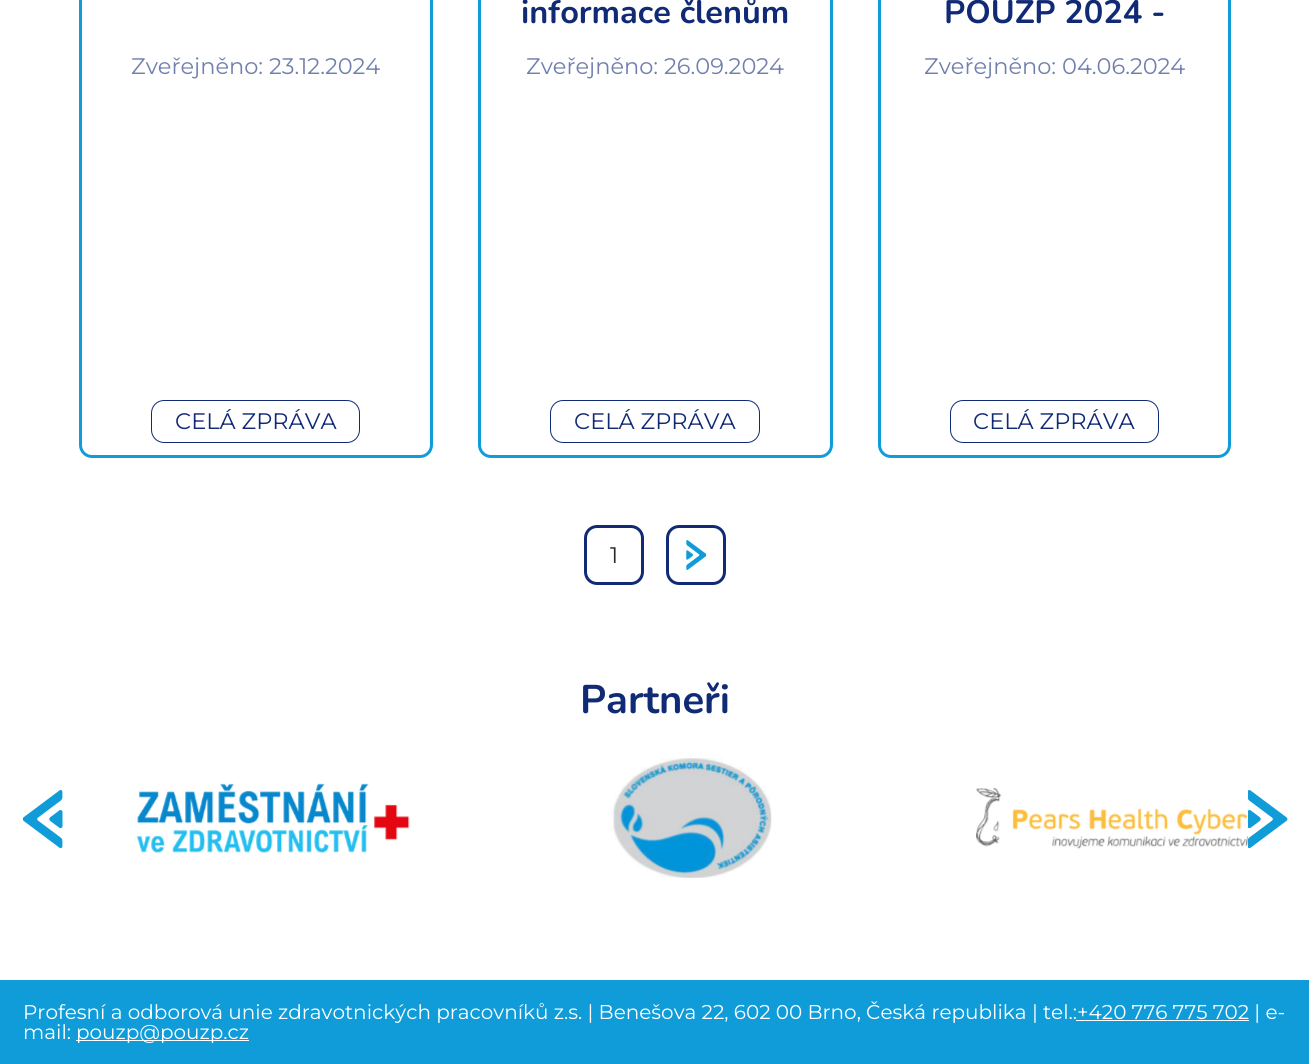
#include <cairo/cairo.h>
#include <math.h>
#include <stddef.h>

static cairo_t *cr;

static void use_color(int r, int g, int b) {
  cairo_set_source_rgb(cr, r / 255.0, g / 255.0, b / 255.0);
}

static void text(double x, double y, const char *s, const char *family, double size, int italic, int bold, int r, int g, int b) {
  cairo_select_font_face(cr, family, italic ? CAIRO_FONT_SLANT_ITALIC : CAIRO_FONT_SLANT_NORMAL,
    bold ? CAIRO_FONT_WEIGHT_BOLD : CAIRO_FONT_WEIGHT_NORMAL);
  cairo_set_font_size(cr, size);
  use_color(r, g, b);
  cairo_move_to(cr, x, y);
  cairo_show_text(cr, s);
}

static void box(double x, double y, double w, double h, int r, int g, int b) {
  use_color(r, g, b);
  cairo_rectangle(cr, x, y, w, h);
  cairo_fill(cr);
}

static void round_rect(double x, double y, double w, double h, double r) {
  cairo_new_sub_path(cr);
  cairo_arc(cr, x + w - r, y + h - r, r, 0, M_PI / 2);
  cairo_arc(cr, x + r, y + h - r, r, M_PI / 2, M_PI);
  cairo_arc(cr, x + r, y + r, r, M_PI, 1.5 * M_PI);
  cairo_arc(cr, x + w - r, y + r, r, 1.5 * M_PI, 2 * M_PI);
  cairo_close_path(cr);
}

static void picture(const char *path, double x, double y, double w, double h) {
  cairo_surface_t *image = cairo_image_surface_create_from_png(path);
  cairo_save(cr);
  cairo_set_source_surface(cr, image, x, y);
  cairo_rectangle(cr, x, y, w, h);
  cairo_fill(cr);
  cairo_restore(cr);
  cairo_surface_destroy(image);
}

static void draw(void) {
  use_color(255, 255, 255);
  cairo_paint(cr);
  round_rect(80.5, -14.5, 351, 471, 11.5);
  use_color(15, 156, 217);
  cairo_set_line_width(cr, 3);
  cairo_stroke(cr);
  round_rect(151.5, 400.5, 208, 42, 12.5);
  use_color(16, 42, 118);
  cairo_set_line_width(cr, 1);
  cairo_stroke(cr);
  round_rect(479.5, -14.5, 352, 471, 11.5);
  use_color(15, 156, 217);
  cairo_set_line_width(cr, 3);
  cairo_stroke(cr);
  round_rect(550.5, 400.5, 209, 42, 12.5);
  use_color(16, 42, 118);
  cairo_set_line_width(cr, 1);
  cairo_stroke(cr);
  round_rect(879.5, -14.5, 350, 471, 11.5);
  use_color(15, 156, 217);
  cairo_set_line_width(cr, 3);
  cairo_stroke(cr);
  round_rect(950.5, 400.5, 208, 42, 12.5);
  use_color(16, 42, 118);
  cairo_set_line_width(cr, 1);
  cairo_stroke(cr);
  round_rect(585.5, 526.5, 57, 57, 11.5);
  cairo_set_line_width(cr, 3);
  cairo_stroke(cr);
  round_rect(667.5, 526.5, 57, 57, 11.5);
  cairo_stroke(cr);
  picture("img_01.png", 686, 540, 20, 30);
  picture("img_02.png", 23, 790, 40, 58);
  picture("img_03.png", 136, 783, 274, 71);
  picture("img_04.png", 613, 758, 159, 120);
  picture("img_05.png", 976, 788, 272, 61);
  picture("img_06.png", 1248, 790, 40, 58);
  box(0, 980, 1309, 84, 15, 156, 217);
  box(1076, 1020, 173, 1, 255, 255, 255);
  box(76, 1040, 173, 1, 255, 255, 255);
  text(131, 74, "Zveřejněno: 23.12.2024", "Montserrat", 22.5, 0, 0, 112, 127, 173);
  text(175, 429, "CELÁ ZPRÁVA", "Montserrat", 22.5, 0, 0, 16, 42, 118);
  text(521, 23, "informace členům", "Nunito", 32.5, 0, 1, 16, 42, 118);
  text(526, 74, "Zveřejněno: 26.09.2024", "Montserrat", 22.5, 0, 0, 112, 127, 173);
  text(574, 429, "CELÁ ZPRÁVA", "Montserrat", 22.5, 0, 0, 16, 42, 118);
  text(944, 23, "POUZP 2024 -", "Nunito", 32.5, 0, 1, 16, 42, 118);
  text(924, 74, "Zveřejněno: 04.06.2024", "Montserrat", 22.5, 0, 0, 112, 127, 173);
  text(973, 429, "CELÁ ZPRÁVA", "Montserrat", 22.5, 0, 0, 16, 42, 118);
  text(610, 563, "1", "Montserrat", 22.5, 0, 0, 38, 38, 38);
  text(580, 713, "Partneři", "Nunito", 40, 0, 1, 16, 42, 118);
  text(23, 1019, "Profesní a odborová unie zdravotnických pracovníků z.s. | Benešova 22, 602 00 Brno, Česká republika | tel.:+420 776 775 702 | e-", "Montserrat", 20, 0, 0, 255, 255, 255);
  text(23, 1039, "mail:", "Montserrat", 20, 0, 0, 255, 255, 255);
  text(76, 1039, "pouzp@pouzp.cz", "Montserrat", 20, 0, 0, 255, 255, 255);
}

int main(void) {
  cairo_surface_t *surface = cairo_image_surface_create(CAIRO_FORMAT_RGB24, 1309, 1064);
  cr = cairo_create(surface);
  cairo_font_options_t *options = cairo_font_options_create();
  cairo_font_options_set_hint_metrics(options, CAIRO_HINT_METRICS_OFF);
  cairo_font_options_set_hint_style(options, CAIRO_HINT_STYLE_NONE);
  cairo_set_font_options(cr, options);
  cairo_set_miter_limit(cr, 4);
  draw();
  cairo_surface_write_to_png(surface, "out.png");
  cairo_font_options_destroy(options);
  cairo_destroy(cr);
  cairo_surface_destroy(surface);
  return 0;
}
